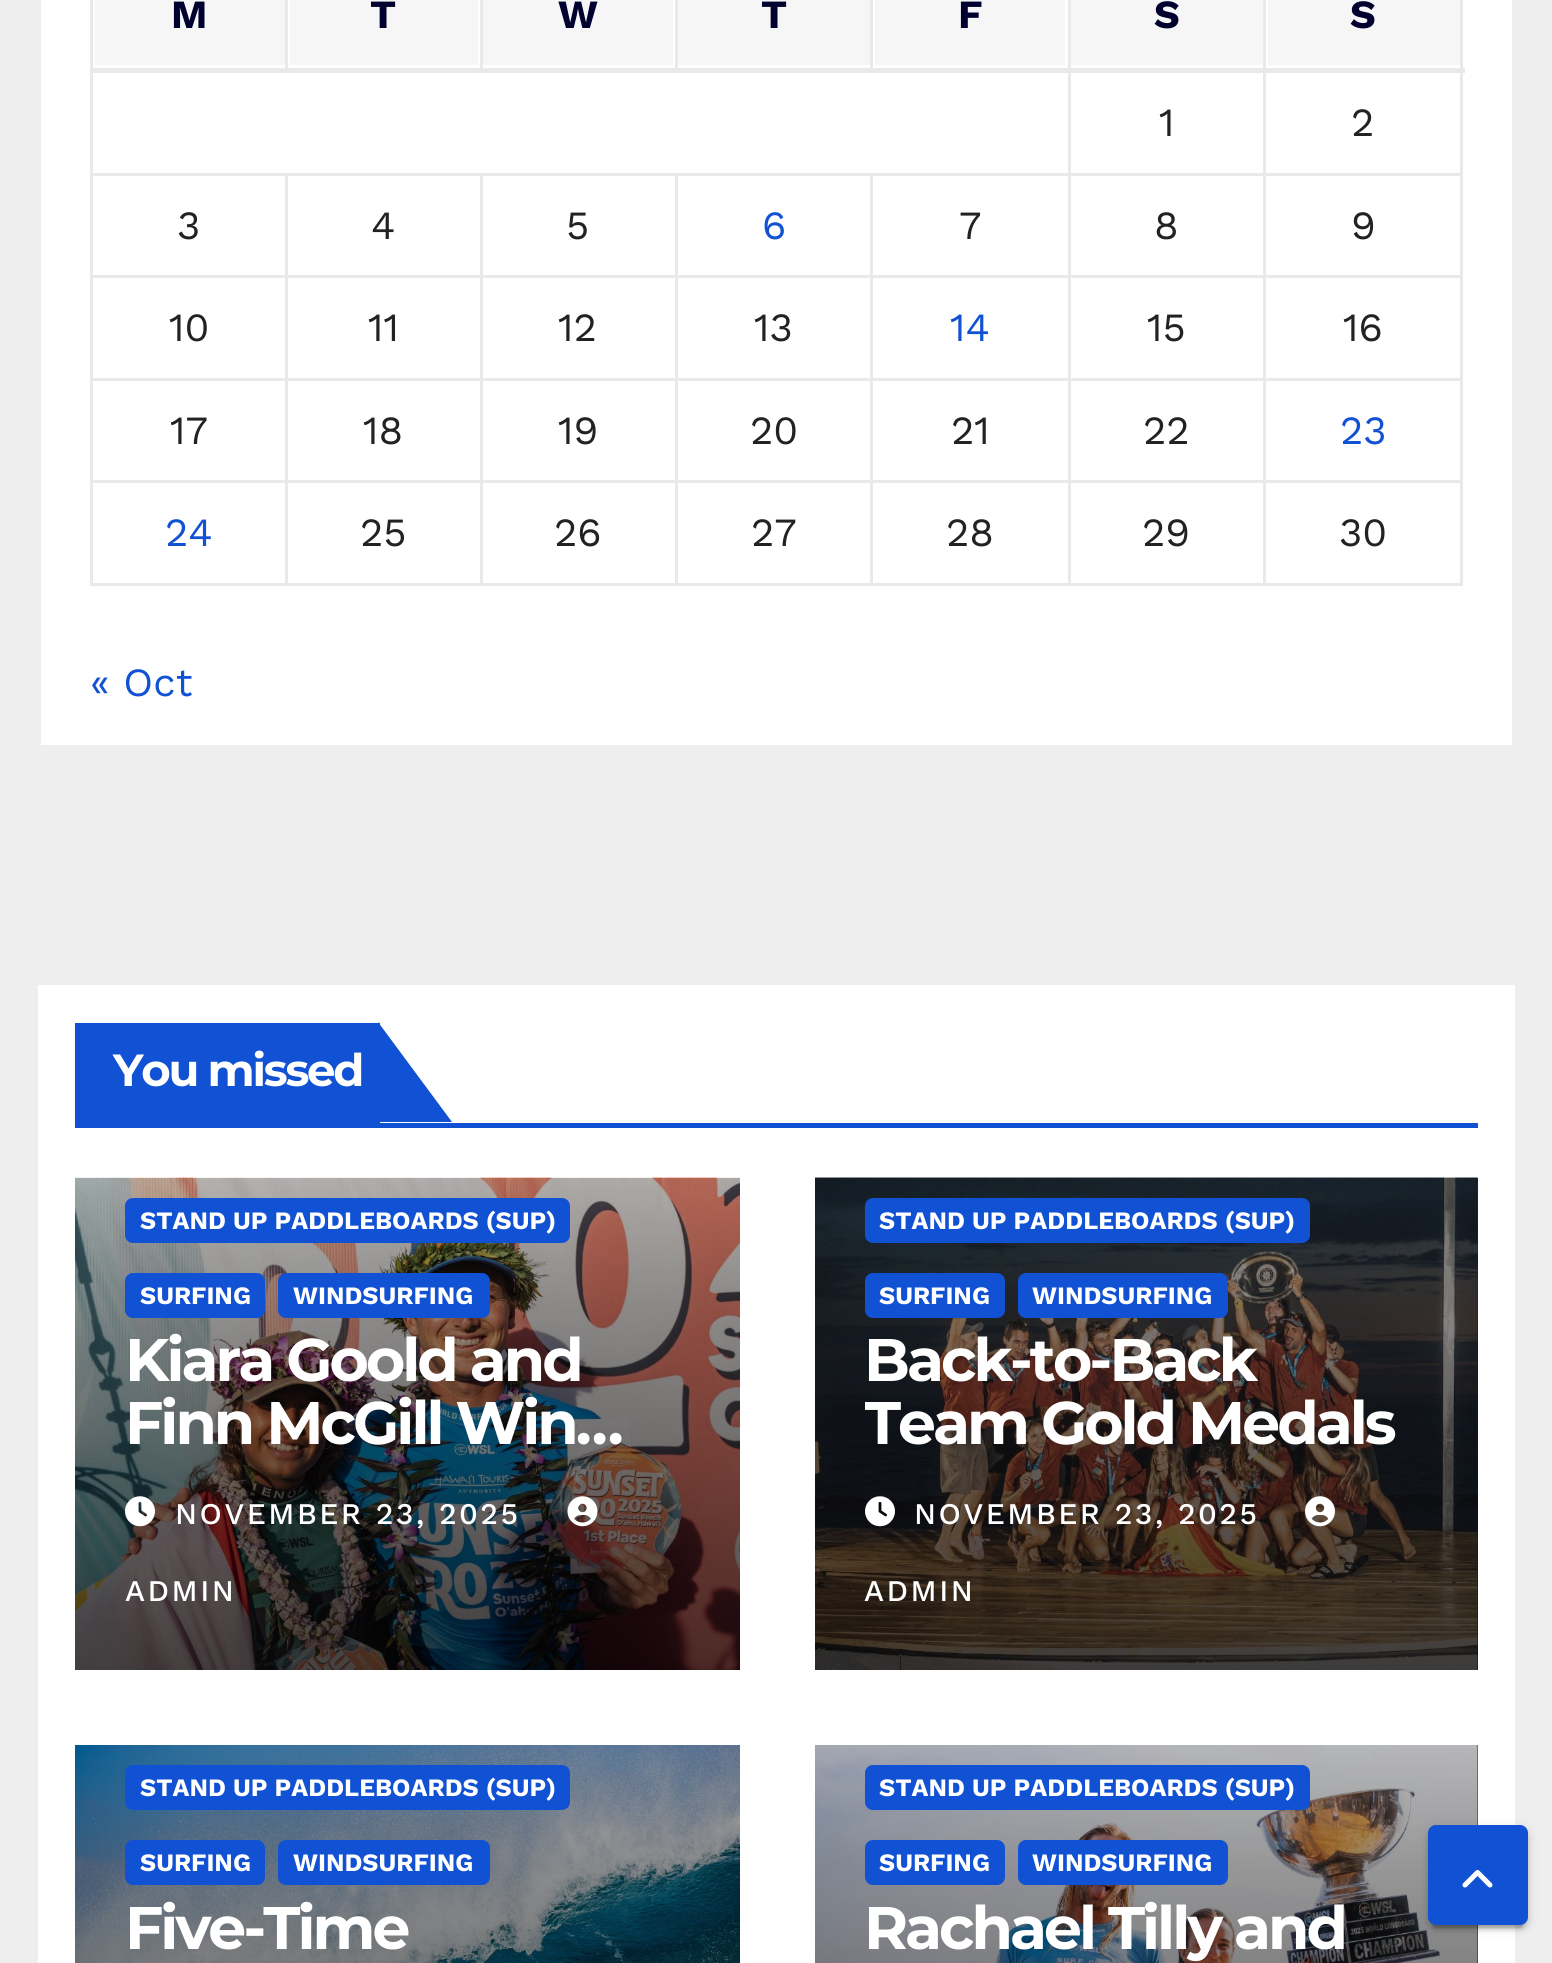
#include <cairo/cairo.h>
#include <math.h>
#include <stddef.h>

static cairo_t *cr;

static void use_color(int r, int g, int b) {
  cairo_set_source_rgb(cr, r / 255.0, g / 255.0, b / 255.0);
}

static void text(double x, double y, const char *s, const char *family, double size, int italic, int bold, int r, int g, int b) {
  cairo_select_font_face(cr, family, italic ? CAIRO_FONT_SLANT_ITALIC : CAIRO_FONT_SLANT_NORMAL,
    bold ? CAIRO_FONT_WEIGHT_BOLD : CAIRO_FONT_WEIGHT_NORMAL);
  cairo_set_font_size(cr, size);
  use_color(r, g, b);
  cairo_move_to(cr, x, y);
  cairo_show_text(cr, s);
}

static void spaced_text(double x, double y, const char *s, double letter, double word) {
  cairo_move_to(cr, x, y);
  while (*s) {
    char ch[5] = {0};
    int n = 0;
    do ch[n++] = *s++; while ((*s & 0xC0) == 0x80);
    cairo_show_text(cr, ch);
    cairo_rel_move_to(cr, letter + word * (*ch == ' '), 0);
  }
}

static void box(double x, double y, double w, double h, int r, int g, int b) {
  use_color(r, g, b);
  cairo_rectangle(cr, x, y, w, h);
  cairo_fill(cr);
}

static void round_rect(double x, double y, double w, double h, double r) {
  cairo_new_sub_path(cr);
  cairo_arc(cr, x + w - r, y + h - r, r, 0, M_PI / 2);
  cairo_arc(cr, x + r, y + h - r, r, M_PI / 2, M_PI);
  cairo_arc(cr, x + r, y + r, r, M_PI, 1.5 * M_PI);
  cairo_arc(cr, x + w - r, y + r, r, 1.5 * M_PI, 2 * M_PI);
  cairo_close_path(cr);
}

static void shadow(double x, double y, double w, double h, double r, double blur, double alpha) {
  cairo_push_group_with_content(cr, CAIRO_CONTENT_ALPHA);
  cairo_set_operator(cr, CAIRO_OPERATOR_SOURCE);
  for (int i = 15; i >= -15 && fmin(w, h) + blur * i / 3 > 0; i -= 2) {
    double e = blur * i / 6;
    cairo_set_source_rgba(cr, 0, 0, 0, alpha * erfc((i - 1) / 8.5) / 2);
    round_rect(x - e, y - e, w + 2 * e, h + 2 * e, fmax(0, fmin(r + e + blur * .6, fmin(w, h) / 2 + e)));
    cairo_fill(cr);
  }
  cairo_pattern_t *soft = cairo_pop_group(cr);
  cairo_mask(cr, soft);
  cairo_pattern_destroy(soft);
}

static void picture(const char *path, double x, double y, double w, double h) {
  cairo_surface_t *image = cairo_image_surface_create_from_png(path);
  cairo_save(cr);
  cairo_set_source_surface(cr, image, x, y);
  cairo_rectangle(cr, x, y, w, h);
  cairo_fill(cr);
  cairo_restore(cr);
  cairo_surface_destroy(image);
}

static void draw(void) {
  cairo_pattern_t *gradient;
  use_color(238, 238, 238);
  cairo_paint(cr);
  box(41, 0, 1471, 745, 255, 255, 255);
  box(1460, 0, 3, 585, 233, 233, 233);
  box(90, 583, 1373, 3, 233, 233, 233);
  box(90, 0, 3, 585, 233, 233, 233);
  box(95, 0, 190, 65, 246, 246, 246);
  box(290, 0, 188, 65, 246, 246, 246);
  box(285, 0, 3, 73, 233, 233, 233);
  box(483, 0, 190, 65, 246, 246, 246);
  box(480, 0, 3, 73, 233, 233, 233);
  box(678, 0, 192, 65, 246, 246, 246);
  box(675, 0, 3, 73, 233, 233, 233);
  box(875, 0, 190, 65, 246, 246, 246);
  box(870, 0, 3, 73, 233, 233, 233);
  box(1071, 0, 192, 65, 246, 246, 246);
  box(1268, 0, 192, 65, 246, 246, 246);
  box(1263, 173, 200, 3, 233, 233, 233);
  box(1263, 275, 200, 3, 233, 233, 233);
  box(1263, 378, 200, 3, 233, 233, 233);
  box(1263, 480, 200, 3, 233, 233, 233);
  box(1263, 480, 3, 105, 233, 233, 233);
  box(1068, 480, 197, 3, 233, 233, 233);
  box(1263, 378, 3, 105, 233, 233, 233);
  box(1068, 378, 197, 3, 233, 233, 233);
  box(1263, 275, 3, 105, 233, 233, 233);
  box(1068, 275, 197, 3, 233, 233, 233);
  box(1263, 173, 3, 105, 233, 233, 233);
  box(1068, 173, 197, 3, 233, 233, 233);
  box(1068, 480, 3, 105, 233, 233, 233);
  box(870, 480, 200, 3, 233, 233, 233);
  box(1068, 378, 3, 105, 233, 233, 233);
  box(870, 378, 200, 3, 233, 233, 233);
  box(1068, 275, 3, 105, 233, 233, 233);
  box(870, 275, 200, 3, 233, 233, 233);
  box(1068, 173, 3, 105, 233, 233, 233);
  box(870, 173, 200, 3, 233, 233, 233);
  box(1068, 0, 3, 175, 233, 233, 233);
  box(1263, 0, 3, 175, 233, 233, 233);
  box(90, 68, 1375, 5, 233, 233, 233);
  box(870, 480, 3, 105, 233, 233, 233);
  box(675, 480, 198, 3, 233, 233, 233);
  box(870, 378, 3, 105, 233, 233, 233);
  box(675, 378, 198, 3, 233, 233, 233);
  box(870, 275, 3, 105, 233, 233, 233);
  box(675, 275, 198, 3, 233, 233, 233);
  box(870, 173, 3, 105, 233, 233, 233);
  box(675, 173, 198, 3, 233, 233, 233);
  box(675, 480, 3, 105, 233, 233, 233);
  box(480, 480, 198, 3, 233, 233, 233);
  box(675, 378, 3, 105, 233, 233, 233);
  box(480, 378, 198, 3, 233, 233, 233);
  box(675, 275, 3, 105, 233, 233, 233);
  box(480, 275, 198, 3, 233, 233, 233);
  box(675, 173, 3, 105, 233, 233, 233);
  box(480, 173, 198, 3, 233, 233, 233);
  box(480, 480, 3, 105, 233, 233, 233);
  box(285, 480, 198, 3, 233, 233, 233);
  box(480, 378, 3, 105, 233, 233, 233);
  box(285, 378, 198, 3, 233, 233, 233);
  box(480, 275, 3, 105, 233, 233, 233);
  box(285, 275, 198, 3, 233, 233, 233);
  box(480, 173, 3, 105, 233, 233, 233);
  box(285, 173, 198, 3, 233, 233, 233);
  box(285, 480, 3, 105, 233, 233, 233);
  box(90, 480, 198, 3, 233, 233, 233);
  box(285, 378, 3, 105, 233, 233, 233);
  box(90, 378, 198, 3, 233, 233, 233);
  box(285, 275, 3, 105, 233, 233, 233);
  box(90, 275, 198, 3, 233, 233, 233);
  box(285, 173, 3, 105, 233, 233, 233);
  box(90, 173, 198, 3, 233, 233, 233);
  box(38, 985, 1477, 978, 255, 255, 255);
  box(75, 1123, 1403, 5, 17, 81, 211);
  box(75, 1023, 305, 100, 17, 81, 211);
  cairo_new_path(cr);
  cairo_move_to(cr, 378, 1122);
  cairo_line_to(cr, 378, 1022);
  cairo_line_to(cr, 452, 1122);
  cairo_close_path(cr);
  cairo_fill(cr);
  picture("img_01.png", 75, 1177, 665, 493);
  round_rect(125, 1198, 445, 45, 8);
  cairo_fill(cr);
  round_rect(125, 1273, 140, 45, 8);
  cairo_fill(cr);
  round_rect(278, 1273, 212, 45, 8);
  cairo_fill(cr);
  picture("img_02.png", 125, 1496, 30, 31);
  picture("img_03.png", 567, 1496, 31, 31);
  box(1477, 1178, 1, 492, 51, 51, 51);
  picture("img_04.png", 815, 1177, 663, 493);
  gradient = cairo_pattern_create_linear(1146, 928, 1146, 1670);
  cairo_pattern_add_color_stop_rgba(gradient, 0, 0, 0, 0, 0);
  cairo_pattern_add_color_stop_rgba(gradient, 0.5, 0, 0, 0, 0.4);
  cairo_pattern_add_color_stop_rgba(gradient, 1, 0, 0, 0, 0.7);
  cairo_set_source(cr, gradient);
  cairo_pattern_destroy(gradient);
  cairo_rectangle(cr, 815, 1178, 663, 492);
  cairo_fill(cr);
  use_color(17, 81, 211);
  round_rect(865, 1198, 445, 45, 8);
  cairo_fill(cr);
  round_rect(865, 1273, 140, 45, 8);
  cairo_fill(cr);
  round_rect(1018, 1273, 210, 45, 8);
  cairo_fill(cr);
  picture("img_05.png", 865, 1496, 30, 31);
  picture("img_06.png", 1305, 1496, 30, 31);
  picture("img_07.png", 75, 1745, 665, 218);
  round_rect(125, 1765, 445, 45, 8);
  cairo_fill(cr);
  round_rect(125, 1840, 140, 45, 8);
  cairo_fill(cr);
  round_rect(278, 1840, 212, 45, 8);
  cairo_fill(cr);
  box(1477, 1745, 1, 218, 51, 51, 51);
  picture("img_08.png", 815, 1745, 663, 218);
  gradient = cairo_pattern_create_linear(1146, 1495, 1146, 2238);
  cairo_pattern_add_color_stop_rgba(gradient, 0, 0, 0, 0, 0);
  cairo_pattern_add_color_stop_rgba(gradient, 0.5, 0, 0, 0, 0.4);
  cairo_pattern_add_color_stop_rgba(gradient, 1, 0, 0, 0, 0.7);
  cairo_set_source(cr, gradient);
  cairo_pattern_destroy(gradient);
  cairo_rectangle(cr, 815, 1745, 663, 218);
  cairo_fill(cr);
  use_color(17, 81, 211);
  round_rect(865, 1765, 445, 45, 8);
  cairo_fill(cr);
  round_rect(865, 1840, 140, 45, 8);
  cairo_fill(cr);
  round_rect(1018, 1840, 210, 45, 8);
  cairo_fill(cr);
  use_color(0, 0, 0);
  shadow(1428, 1828, 100, 100, 8, 6, 0.12);
  shadow(1433, 1838, 90, 90, 2.5, 1, 0.2);
  shadow(1428, 1830, 100, 100, 8, 2.5, 0.14);
  use_color(17, 81, 211);
  round_rect(1430.5, 1827.5, 95, 95, 5.5);
  cairo_fill_preserve(cr);
  cairo_set_line_width(cr, 5);
  cairo_stroke(cr);
  picture("img_09.png", 1462, 1870, 31, 18);
  text(171, 28, "M", "Work Sans", 40, 0, 1, 1, 1, 47);
  text(370, 28, "T", "Work Sans", 40, 0, 1, 1, 1, 47);
  text(558, 28, "W", "Work Sans", 40, 0, 1, 1, 1, 47);
  text(761, 28, "T", "Work Sans", 40, 0, 1, 1, 1, 47);
  text(958, 28, "F", "Work Sans", 40, 0, 1, 1, 1, 47);
  text(1154, 28, "S", "Work Sans", 40, 0, 1, 1, 1, 47);
  text(1350, 28, "S", "Work Sans", 40, 0, 1, 1, 1, 47);
  text(1159, 136, "1", "Work Sans", 40, 0, 0, 34, 34, 34);
  text(1351, 136, "2", "Work Sans", 40, 0, 0, 34, 34, 34);
  text(177, 239, "3", "Work Sans", 40, 0, 0, 34, 34, 34);
  text(371, 239, "4", "Work Sans", 40, 0, 0, 34, 34, 34);
  text(566, 239, "5", "Work Sans", 40, 0, 0, 34, 34, 34);
  text(762, 239, "6", "Work Sans", 40, 0, 0, 17, 81, 211);
  text(959, 239, "7", "Work Sans", 40, 0, 0, 34, 34, 34);
  text(1154, 239, "8", "Work Sans", 40, 0, 0, 34, 34, 34);
  text(1351, 239, "9", "Work Sans", 40, 0, 0, 34, 34, 34);
  text(169, 341, "10", "Work Sans", 40, 0, 0, 34, 34, 34);
  text(368, 341, "11", "Work Sans", 40, 0, 0, 34, 34, 34);
  text(558, 341, "12", "Work Sans", 40, 0, 0, 34, 34, 34);
  text(754, 341, "13", "Work Sans", 40, 0, 0, 34, 34, 34);
  text(950, 341, "14", "Work Sans", 40, 0, 0, 17, 81, 211);
  text(1147, 341, "15", "Work Sans", 40, 0, 0, 34, 34, 34);
  text(1343, 341, "16", "Work Sans", 40, 0, 0, 34, 34, 34);
  text(170, 444, "17", "Work Sans", 40, 0, 0, 34, 34, 34);
  text(363, 444, "18", "Work Sans", 40, 0, 0, 34, 34, 34);
  text(558, 444, "19", "Work Sans", 40, 0, 0, 34, 34, 34);
  text(750, 444, "20", "Work Sans", 40, 0, 0, 34, 34, 34);
  text(951, 444, "21", "Work Sans", 40, 0, 0, 34, 34, 34);
  text(1143, 444, "22", "Work Sans", 40, 0, 0, 34, 34, 34);
  text(1340, 444, "23", "Work Sans", 40, 0, 0, 17, 81, 211);
  text(165, 546, "24", "Work Sans", 40, 0, 0, 17, 81, 211);
  text(360, 546, "25", "Work Sans", 40, 0, 0, 34, 34, 34);
  text(554, 546, "26", "Work Sans", 40, 0, 0, 34, 34, 34);
  text(751, 546, "27", "Work Sans", 40, 0, 0, 34, 34, 34);
  text(946, 546, "28", "Work Sans", 40, 0, 0, 34, 34, 34);
  text(1142, 546, "29", "Work Sans", 40, 0, 0, 34, 34, 34);
  text(1339, 546, "30", "Work Sans", 40, 0, 0, 34, 34, 34);
  text(90, 696, "« Oct", "Work Sans", 40, 0, 0, 17, 81, 211);
  cairo_select_font_face(cr, "Montserrat", CAIRO_FONT_SLANT_NORMAL, CAIRO_FONT_WEIGHT_BOLD);
  cairo_set_font_size(cr, 45);
  use_color(255, 255, 255);
  spaced_text(113, 1086, "You missed", -2.25, 0);
  text(140, 1229, "STAND UP PADDLEBOARDS (SUP)", "Work Sans", 25, 0, 1, 255, 255, 255);
  text(140, 1304, "SURFING", "Work Sans", 25, 0, 1, 255, 255, 255);
  text(293, 1304, "WINDSURFING", "Work Sans", 25, 0, 1, 255, 255, 255);
  cairo_select_font_face(cr, "Montserrat", CAIRO_FONT_SLANT_NORMAL, CAIRO_FONT_WEIGHT_BOLD);
  cairo_set_font_size(cr, 60);
  spaced_text(125, 1381, "Kiara Goold and", -3, 0);
  spaced_text(125, 1444, "Finn McGill Win…", -3, 0);
  cairo_select_font_face(cr, "Work Sans Medium", CAIRO_FONT_SLANT_NORMAL, CAIRO_FONT_WEIGHT_NORMAL);
  cairo_set_font_size(cr, 30);
  spaced_text(175, 1524, "NOVEMBER 23, 2025", 2.5, 0);
  spaced_text(125, 1601, "ADMIN", 2.5, 0);
  text(879, 1229, "STAND UP PADDLEBOARDS (SUP)", "Work Sans", 25, 0, 1, 255, 255, 255);
  text(879, 1304, "SURFING", "Work Sans", 25, 0, 1, 255, 255, 255);
  text(1032, 1304, "WINDSURFING", "Work Sans", 25, 0, 1, 255, 255, 255);
  cairo_select_font_face(cr, "Montserrat", CAIRO_FONT_SLANT_NORMAL, CAIRO_FONT_WEIGHT_BOLD);
  cairo_set_font_size(cr, 60);
  spaced_text(864, 1381, "Back-to-Back", -3, 0);
  cairo_save(cr);
  cairo_rectangle(cr, 865, 1328, 563, 125);
  cairo_clip(cr);
  spaced_text(864, 1444, "Team Gold Medals", -3, 0);
  cairo_restore(cr);
  cairo_select_font_face(cr, "Work Sans Medium", CAIRO_FONT_SLANT_NORMAL, CAIRO_FONT_WEIGHT_NORMAL);
  cairo_set_font_size(cr, 30);
  spaced_text(914, 1524, "NOVEMBER 23, 2025", 2.5, 0);
  spaced_text(864, 1601, "ADMIN", 2.5, 0);
  text(140, 1796, "STAND UP PADDLEBOARDS (SUP)", "Work Sans", 25, 0, 1, 255, 255, 255);
  text(140, 1871, "SURFING", "Work Sans", 25, 0, 1, 255, 255, 255);
  text(293, 1871, "WINDSURFING", "Work Sans", 25, 0, 1, 255, 255, 255);
  cairo_select_font_face(cr, "Montserrat", CAIRO_FONT_SLANT_NORMAL, CAIRO_FONT_WEIGHT_BOLD);
  cairo_set_font_size(cr, 60);
  spaced_text(125, 1949, "Five-Time", -3, 0);
  text(879, 1796, "STAND UP PADDLEBOARDS (SUP)", "Work Sans", 25, 0, 1, 255, 255, 255);
  text(879, 1871, "SURFING", "Work Sans", 25, 0, 1, 255, 255, 255);
  text(1032, 1871, "WINDSURFING", "Work Sans", 25, 0, 1, 255, 255, 255);
  cairo_select_font_face(cr, "Montserrat", CAIRO_FONT_SLANT_NORMAL, CAIRO_FONT_WEIGHT_BOLD);
  cairo_set_font_size(cr, 60);
  spaced_text(864, 1949, "Rachael Tilly and", -3, 0);
}

int main(void) {
  cairo_surface_t *surface = cairo_image_surface_create(CAIRO_FORMAT_RGB24, 1552, 1963);
  cr = cairo_create(surface);
  cairo_font_options_t *options = cairo_font_options_create();
  cairo_font_options_set_hint_metrics(options, CAIRO_HINT_METRICS_OFF);
  cairo_font_options_set_hint_style(options, CAIRO_HINT_STYLE_NONE);
  cairo_set_font_options(cr, options);
  cairo_set_miter_limit(cr, 4);
  draw();
  cairo_surface_write_to_png(surface, "out.png");
  cairo_font_options_destroy(options);
  cairo_destroy(cr);
  cairo_surface_destroy(surface);
  return 0;
}
